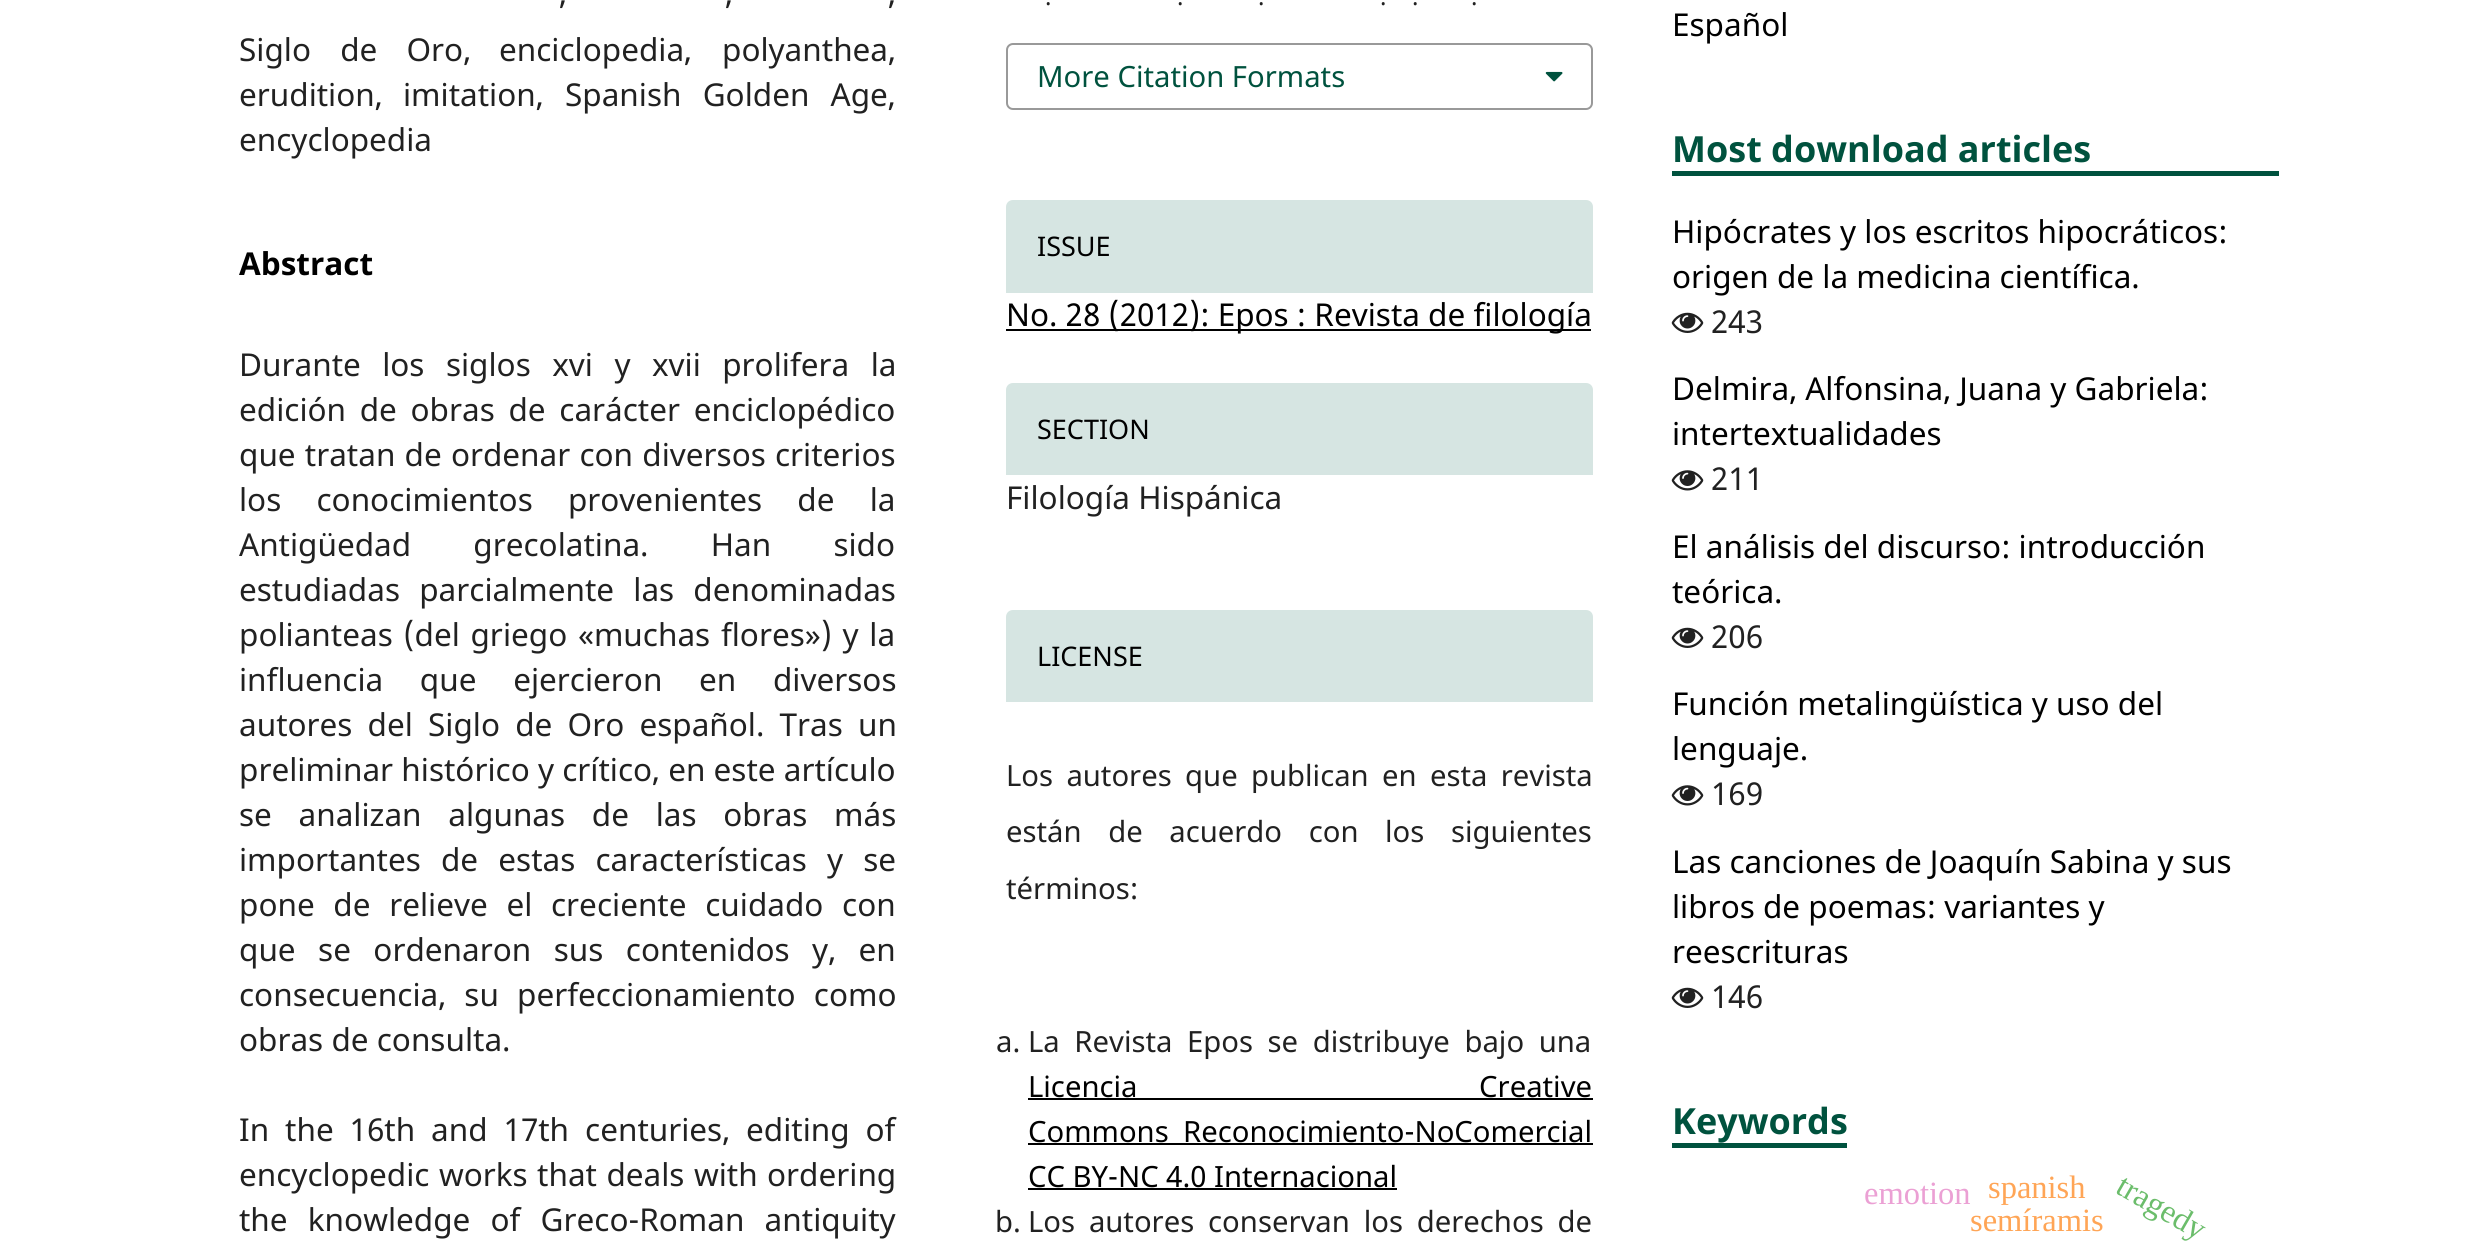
#include <cairo/cairo.h>
#include <math.h>
#include <stddef.h>

static cairo_t *cr;

static void use_color(int r, int g, int b) {
  cairo_set_source_rgb(cr, r / 255.0, g / 255.0, b / 255.0);
}

static void text(double x, double y, const char *s, const char *family, double size, int italic, int bold, int r, int g, int b) {
  cairo_select_font_face(cr, family, italic ? CAIRO_FONT_SLANT_ITALIC : CAIRO_FONT_SLANT_NORMAL,
    bold ? CAIRO_FONT_WEIGHT_BOLD : CAIRO_FONT_WEIGHT_NORMAL);
  cairo_set_font_size(cr, size);
  use_color(r, g, b);
  cairo_move_to(cr, x, y);
  cairo_show_text(cr, s);
}

static void spaced_text(double x, double y, const char *s, double letter, double word) {
  cairo_move_to(cr, x, y);
  while (*s) {
    char ch[5] = {0};
    int n = 0;
    do ch[n++] = *s++; while ((*s & 0xC0) == 0x80);
    cairo_show_text(cr, ch);
    cairo_rel_move_to(cr, letter + word * (*ch == ' '), 0);
  }
}

static void box(double x, double y, double w, double h, int r, int g, int b) {
  use_color(r, g, b);
  cairo_rectangle(cr, x, y, w, h);
  cairo_fill(cr);
}

static void round_rect(double x, double y, double w, double h, double r) {
  cairo_new_sub_path(cr);
  cairo_arc(cr, x + w - r, y + h - r, r, 0, M_PI / 2);
  cairo_arc(cr, x + r, y + h - r, r, M_PI / 2, M_PI);
  cairo_arc(cr, x + r, y + r, r, M_PI, 1.5 * M_PI);
  cairo_arc(cr, x + w - r, y + r, r, 1.5 * M_PI, 2 * M_PI);
  cairo_close_path(cr);
}

static void picture(const char *path, double x, double y, double w, double h) {
  cairo_surface_t *image = cairo_image_surface_create_from_png(path);
  cairo_save(cr);
  cairo_set_source_surface(cr, image, x, y);
  cairo_rectangle(cr, x, y, w, h);
  cairo_fill(cr);
  cairo_restore(cr);
  cairo_surface_destroy(image);
}

static void draw(void) {
  use_color(255, 255, 255);
  cairo_paint(cr);
  round_rect(1007, 44, 585, 65, 6);
  use_color(153, 153, 153);
  cairo_stroke(cr);
  picture("img_01.png", 1545, 71, 18, 11);
  use_color(214, 229, 226);
  cairo_new_path(cr);
  cairo_move_to(cr, 1013, 200);
  cairo_line_to(cr, 1586, 200);
  cairo_curve_to(cr, 1590, 200, 1593, 203, 1593, 207);
  cairo_line_to(cr, 1593, 293);
  cairo_line_to(cr, 1006, 293);
  cairo_line_to(cr, 1006, 207);
  cairo_curve_to(cr, 1006, 203, 1009, 200, 1013, 200);
  cairo_close_path(cr);
  cairo_fill(cr);
  box(1006, 329, 585, 2, 0, 0, 0);
  use_color(214, 229, 226);
  cairo_new_path(cr);
  cairo_move_to(cr, 1013, 383);
  cairo_line_to(cr, 1586, 383);
  cairo_curve_to(cr, 1590, 383, 1593, 386, 1593, 390);
  cairo_line_to(cr, 1593, 475);
  cairo_line_to(cr, 1006, 475);
  cairo_line_to(cr, 1006, 390);
  cairo_curve_to(cr, 1006, 386, 1009, 383, 1013, 383);
  cairo_close_path(cr);
  cairo_fill(cr);
  cairo_new_path(cr);
  cairo_move_to(cr, 1013, 610);
  cairo_line_to(cr, 1586, 610);
  cairo_curve_to(cr, 1590, 610, 1593, 613, 1593, 617);
  cairo_line_to(cr, 1593, 702);
  cairo_line_to(cr, 1006, 702);
  cairo_line_to(cr, 1006, 617);
  cairo_curve_to(cr, 1006, 613, 1009, 610, 1013, 610);
  cairo_close_path(cr);
  cairo_fill(cr);
  box(1028, 1098, 565, 2, 0, 0, 0);
  box(1028, 1143, 565, 2, 0, 0, 0);
  box(1028, 1188, 369, 2, 0, 0, 0);
  box(1672, 171, 607, 5, 0, 82, 62);
  picture("img_02.png", 1671, 312, 33, 21);
  picture("img_03.png", 1671, 470, 33, 21);
  picture("img_02.png", 1671, 627, 33, 21);
  picture("img_03.png", 1671, 785, 33, 21);
  picture("img_02.png", 1671, 987, 33, 21);
  box(1672, 1143, 175, 5, 0, 82, 62);
  text(559, 4, ",", "Noto Sans", 31.5, 0, 0, 33, 33, 33);
  text(725, 4, ",", "Noto Sans", 31.5, 0, 0, 33, 33, 33);
  text(888, 4, ",", "Noto Sans", 31.5, 0, 0, 33, 33, 33);
  spaced_text(239, 61, "Siglo de Oro,", 0, 21);
  text(499, 61, "enciclopedia,", "Noto Sans", 31.5, 0, 0, 33, 33, 33);
  text(722, 61, "polyanthea,", "Noto Sans", 31.5, 0, 0, 33, 33, 33);
  text(239, 106, "erudition,", "Noto Sans", 31.5, 0, 0, 33, 33, 33);
  text(403, 106, "imitation,", "Noto Sans", 31.5, 0, 0, 33, 33, 33);
  spaced_text(565, 106, "Spanish Golden Age,", 0, 13);
  text(239, 151, "encyclopedia", "Noto Sans", 31.5, 0, 0, 33, 33, 33);
  text(239, 275, "Abstract", "Noto Sans", 31.5, 0, 1, 0, 0, 0);
  cairo_select_font_face(cr, "Noto Sans", CAIRO_FONT_SLANT_NORMAL, CAIRO_FONT_WEIGHT_NORMAL);
  use_color(33, 33, 33);
  spaced_text(239, 376, "Durante los siglos xvi y xvii prolifera la", 0, 13.25);
  spaced_text(239, 421, "edición de obras de carácter enciclopédico", 0, 5.5);
  spaced_text(239, 466, "que tratan de ordenar con diversos criterios", 0, 1);
  spaced_text(239, 511, "los conocimientos provenientes de la", 0, 27);
  spaced_text(239, 556, "Antigüedad grecolatina. Han sido", 0, 54);
  spaced_text(239, 601, "estudiadas parcialmente las denominadas", 0, 11);
  spaced_text(239, 646, "polianteas (del griego «muchas flores») y la", 0, 2.5);
  spaced_text(239, 691, "influencia que ejercieron en diversos", 0, 28.5);
  spaced_text(239, 736, "autores del Siglo de Oro español. Tras un", 0, 7);
  text(239, 781, "preliminar histórico y crítico, en este artículo", "Noto Sans", 31.5, 0, 0, 33, 33, 33);
  spaced_text(239, 826, "se analizan algunas de las obras más", 0, 18.5);
  spaced_text(239, 871, "importantes de estas características y se", 0, 12);
  spaced_text(239, 916, "pone de relieve el creciente cuidado con", 0, 10.5);
  spaced_text(239, 961, "que se ordenaron sus contenidos y, en", 0, 14.25);
  spaced_text(239, 1006, "consecuencia, su perfeccionamiento como", 0, 10);
  text(239, 1051, "obras de consulta.", "Noto Sans", 31.5, 0, 0, 33, 33, 33);
  spaced_text(239, 1141, "In the 16th and 17th centuries, editing of", 0, 7.75);
  spaced_text(239, 1186, "encyclopedic works that deals with ordering", 0, 1.25);
  spaced_text(239, 1231, "the knowledge of Greco-Roman antiquity", 0, 12);
  text(1045, 5, ".", "Noto Sans", 24, 0, 0, 33, 33, 33);
  text(1177, 5, ".", "Noto Sans", 24, 0, 0, 33, 33, 33);
  text(1258, 5, ".", "Noto Sans", 24, 0, 0, 33, 33, 33);
  text(1380, 5, ".", "Noto Sans", 24, 0, 0, 33, 33, 33);
  text(1412, 5, ".", "Noto Sans", 24, 0, 0, 33, 33, 33);
  text(1471, 5, ".", "Noto Sans", 24, 0, 0, 33, 33, 33);
  text(1037, 87, "More Citation Formats", "Noto Sans", 29.25, 0, 0, 0, 82, 62);
  text(1037, 256, "ISSUE", "Noto Sans", 27, 0, 0, 0, 0, 0);
  text(1006, 326, "No. 28 (2012): Epos : Revista de filología", "Noto Sans", 31.5, 0, 0, 0, 0, 0);
  text(1037, 439, "SECTION", "Noto Sans", 27, 0, 0, 0, 0, 0);
  text(1006, 509, "Filología Hispánica", "Noto Sans", 31.5, 0, 0, 33, 33, 33);
  text(1037, 666, "LICENSE", "Noto Sans", 27, 0, 0, 0, 0, 0);
  cairo_set_font_size(cr, 29.25);
  use_color(33, 33, 33);
  spaced_text(1006, 786, "Los autores que publican en esta revista", 0, 5.75);
  spaced_text(1006, 842, "están de acuerdo con los siguientes", 0, 19);
  text(1006, 899, "términos:", "Noto Sans", 29.25, 0, 0, 33, 33, 33);
  text(996, 1052, "a.", "Noto Sans", 29.25, 0, 0, 33, 33, 33);
  spaced_text(1028, 1052, "La Revista Epos se distribuye bajo una", 0, 7);
  use_color(0, 0, 0);
  spaced_text(1028, 1097, "Licencia Creative", 0, 334);
  text(1028, 1142, "Commons", "Noto Sans", 29.25, 0, 0, 0, 0, 0);
  text(1183, 1142, "Reconocimiento-NoComercial", "Noto Sans", 29.25, 0, 0, 0, 0, 0);
  text(1028, 1187, "CC BY-NC 4.0 Internacional", "Noto Sans", 29.25, 0, 0, 0, 0, 0);
  text(995, 1232, "b.", "Noto Sans", 29.25, 0, 0, 33, 33, 33);
  spaced_text(1028, 1232, "Los autores conservan los derechos de", 0, 6.25);
  text(1672, 36, "Español", "Noto Sans", 31.5, 0, 0, 0, 0, 0);
  text(1672, 162, "Most download articles", "Noto Sans", 36, 0, 1, 0, 82, 62);
  text(1672, 243, "Hipócrates y los escritos hipocráticos:", "Noto Sans", 31.5, 0, 0, 0, 0, 0);
  text(1672, 288, "origen de la medicina científica.", "Noto Sans", 31.5, 0, 0, 0, 0, 0);
  text(1711, 333, "243", "Noto Sans", 31.5, 0, 0, 33, 33, 33);
  text(1672, 400, "Delmira, Alfonsina, Juana y Gabriela:", "Noto Sans", 31.5, 0, 0, 0, 0, 0);
  text(1672, 445, "intertextualidades", "Noto Sans", 31.5, 0, 0, 0, 0, 0);
  text(1711, 490, "211", "Noto Sans", 31.5, 0, 0, 33, 33, 33);
  text(1672, 558, "El análisis del discurso: introducción", "Noto Sans", 31.5, 0, 0, 0, 0, 0);
  text(1672, 603, "teórica.", "Noto Sans", 31.5, 0, 0, 0, 0, 0);
  text(1711, 648, "206", "Noto Sans", 31.5, 0, 0, 33, 33, 33);
  text(1672, 715, "Función metalingüística y uso del", "Noto Sans", 31.5, 0, 0, 0, 0, 0);
  text(1672, 760, "lenguaje.", "Noto Sans", 31.5, 0, 0, 0, 0, 0);
  text(1711, 805, "169", "Noto Sans", 31.5, 0, 0, 33, 33, 33);
  text(1672, 873, "Las canciones de Joaquín Sabina y sus", "Noto Sans", 31.5, 0, 0, 0, 0, 0);
  text(1672, 918, "libros de poemas: variantes y", "Noto Sans", 31.5, 0, 0, 0, 0, 0);
  text(1672, 963, "reescrituras", "Noto Sans", 31.5, 0, 0, 0, 0, 0);
  text(1711, 1008, "146", "Noto Sans", 31.5, 0, 0, 33, 33, 33);
  text(1672, 1134, "Keywords", "Noto Sans", 36, 0, 1, 0, 82, 62);
  text(1864, 1204, "emotion", "Liberation Serif", 32.5, 0, 0, 235, 160, 212);
  text(1988, 1198, "spanish", "Liberation Serif", 32.5, 0, 0, 255, 165, 86);
  cairo_save(cr);
  cairo_translate(cr, 2114, 1192);
  cairo_rotate(cr, 30 * M_PI / 180);
  text(0, 0, "tragedy", "Liberation Serif", 32.5, 0, 0, 107, 189, 107);
  cairo_restore(cr);
  text(1970, 1231, "semíramis", "Liberation Serif", 32.5, 0, 0, 255, 165, 86);
}

int main(void) {
  cairo_surface_t *surface = cairo_image_surface_create(CAIRO_FORMAT_RGB24, 2484, 1254);
  cr = cairo_create(surface);
  cairo_font_options_t *options = cairo_font_options_create();
  cairo_font_options_set_hint_metrics(options, CAIRO_HINT_METRICS_OFF);
  cairo_font_options_set_hint_style(options, CAIRO_HINT_STYLE_NONE);
  cairo_set_font_options(cr, options);
  cairo_set_miter_limit(cr, 4);
  draw();
  cairo_surface_write_to_png(surface, "out.png");
  cairo_font_options_destroy(options);
  cairo_destroy(cr);
  cairo_surface_destroy(surface);
  return 0;
}
